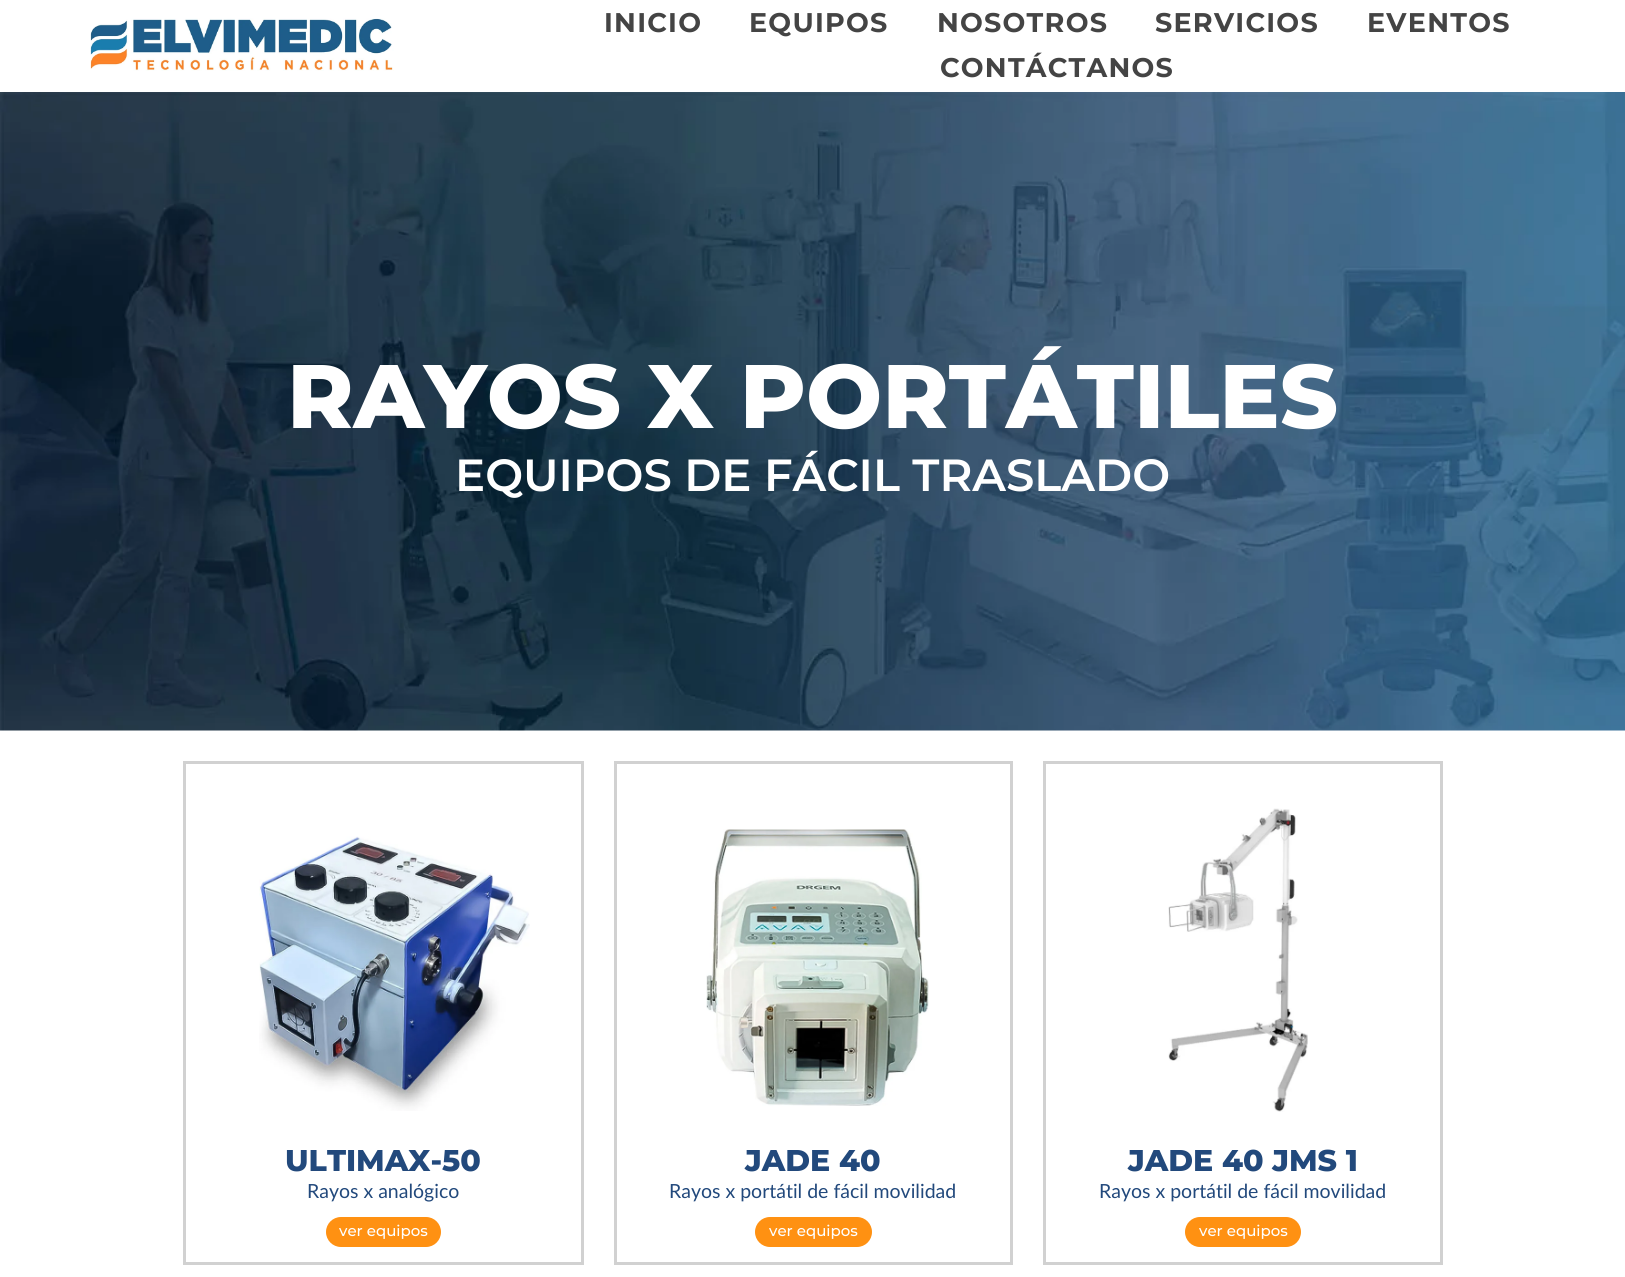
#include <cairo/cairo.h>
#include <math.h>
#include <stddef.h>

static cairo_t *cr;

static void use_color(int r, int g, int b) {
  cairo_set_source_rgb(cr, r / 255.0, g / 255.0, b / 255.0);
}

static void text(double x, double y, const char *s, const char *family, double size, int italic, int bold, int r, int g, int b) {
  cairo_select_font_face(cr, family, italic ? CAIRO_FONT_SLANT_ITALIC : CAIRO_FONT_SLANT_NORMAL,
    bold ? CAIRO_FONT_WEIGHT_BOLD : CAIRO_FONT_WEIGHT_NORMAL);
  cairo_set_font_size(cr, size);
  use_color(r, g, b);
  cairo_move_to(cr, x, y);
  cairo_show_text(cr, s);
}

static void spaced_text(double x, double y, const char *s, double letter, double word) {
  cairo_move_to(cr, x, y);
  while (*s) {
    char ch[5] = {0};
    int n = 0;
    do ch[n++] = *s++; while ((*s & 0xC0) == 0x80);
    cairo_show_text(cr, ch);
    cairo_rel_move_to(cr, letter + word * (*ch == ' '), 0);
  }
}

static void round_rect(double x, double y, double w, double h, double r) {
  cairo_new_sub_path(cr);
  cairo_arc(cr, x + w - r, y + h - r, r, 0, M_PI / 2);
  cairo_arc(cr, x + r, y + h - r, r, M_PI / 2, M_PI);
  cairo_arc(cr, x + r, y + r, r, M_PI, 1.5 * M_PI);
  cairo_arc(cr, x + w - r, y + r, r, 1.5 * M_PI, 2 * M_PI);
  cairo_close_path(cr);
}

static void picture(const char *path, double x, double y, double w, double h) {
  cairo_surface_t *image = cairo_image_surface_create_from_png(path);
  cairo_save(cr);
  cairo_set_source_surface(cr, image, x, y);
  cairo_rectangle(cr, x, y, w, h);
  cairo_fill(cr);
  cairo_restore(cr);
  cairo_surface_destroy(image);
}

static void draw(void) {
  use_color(255, 255, 255);
  cairo_paint(cr);
  picture("img_01.png", 90, 18, 304, 53);
  picture("img_02.png", 0, 92, 1625, 639);
  cairo_rectangle(cr, 184.5, 762.5, 398, 501);
  use_color(209, 209, 209);
  cairo_set_line_width(cr, 3);
  cairo_stroke(cr);
  picture("img_03.png", 259, 836, 271, 275);
  use_color(255, 145, 18);
  round_rect(326, 1217, 115, 30, 15);
  cairo_fill(cr);
  cairo_rectangle(cr, 615.5, 762.5, 396, 501);
  use_color(209, 209, 209);
  cairo_stroke(cr);
  picture("img_04.png", 706, 829, 223, 277);
  use_color(255, 145, 18);
  round_rect(755, 1217, 117, 30, 15);
  cairo_fill(cr);
  cairo_rectangle(cr, 1044.5, 762.5, 397, 501);
  use_color(209, 209, 209);
  cairo_stroke(cr);
  picture("img_05.png", 1168, 808, 140, 304);
  use_color(255, 145, 18);
  round_rect(1185, 1217, 116, 30, 15);
  cairo_fill(cr);
  cairo_select_font_face(cr, "Montserrat", CAIRO_FONT_SLANT_NORMAL, CAIRO_FONT_WEIGHT_BOLD);
  cairo_set_font_size(cr, 27);
  use_color(68, 68, 68);
  spaced_text(604, 32, "INICIO", 1.25, 0);
  spaced_text(749, 32, "EQUIPOS", 1.25, 0);
  spaced_text(937, 32, "NOSOTROS", 1.25, 0);
  spaced_text(1155, 32, "SERVICIOS", 1.25, 0);
  spaced_text(1367, 32, "EVENTOS", 1.25, 0);
  spaced_text(940, 77, "CONTÁCTANOS", 1.25, 0);
  text(287, 428, "RAYOS X PORTÁTILES", "Montserrat ExtraBold", 90, 0, 0, 255, 255, 255);
  text(455, 491, "EQUIPOS DE FÁCIL TRASLADO", "Montserrat SemiBold", 45, 0, 0, 255, 255, 255);
  text(285, 1171, "ULTIMAX-50", "Montserrat ExtraBold", 30, 0, 0, 34, 73, 124);
  text(307, 1198, "Rayos x analógico", "Lato", 19.5, 0, 0, 34, 73, 124);
  text(339, 1236, "ver equipos", "Montserrat Medium", 15, 0, 0, 255, 255, 255);
  text(745, 1171, "JADE 40", "Montserrat ExtraBold", 30, 0, 0, 34, 73, 124);
  text(669, 1198, "Rayos x portátil de fácil movilidad", "Lato", 19.5, 0, 0, 34, 73, 124);
  text(769, 1236, "ver equipos", "Montserrat Medium", 15, 0, 0, 255, 255, 255);
  text(1128, 1171, "JADE 40 JMS 1", "Montserrat ExtraBold", 30, 0, 0, 34, 73, 124);
  text(1099, 1198, "Rayos x portátil de fácil movilidad", "Lato", 19.5, 0, 0, 34, 73, 124);
  text(1199, 1236, "ver equipos", "Montserrat Medium", 15, 0, 0, 255, 255, 255);
}

int main(void) {
  cairo_surface_t *surface = cairo_image_surface_create(CAIRO_FORMAT_RGB24, 1625, 1277);
  cr = cairo_create(surface);
  cairo_font_options_t *options = cairo_font_options_create();
  cairo_font_options_set_hint_metrics(options, CAIRO_HINT_METRICS_OFF);
  cairo_font_options_set_hint_style(options, CAIRO_HINT_STYLE_NONE);
  cairo_set_font_options(cr, options);
  cairo_set_miter_limit(cr, 4);
  draw();
  cairo_surface_write_to_png(surface, "out.png");
  cairo_font_options_destroy(options);
  cairo_destroy(cr);
  cairo_surface_destroy(surface);
  return 0;
}
